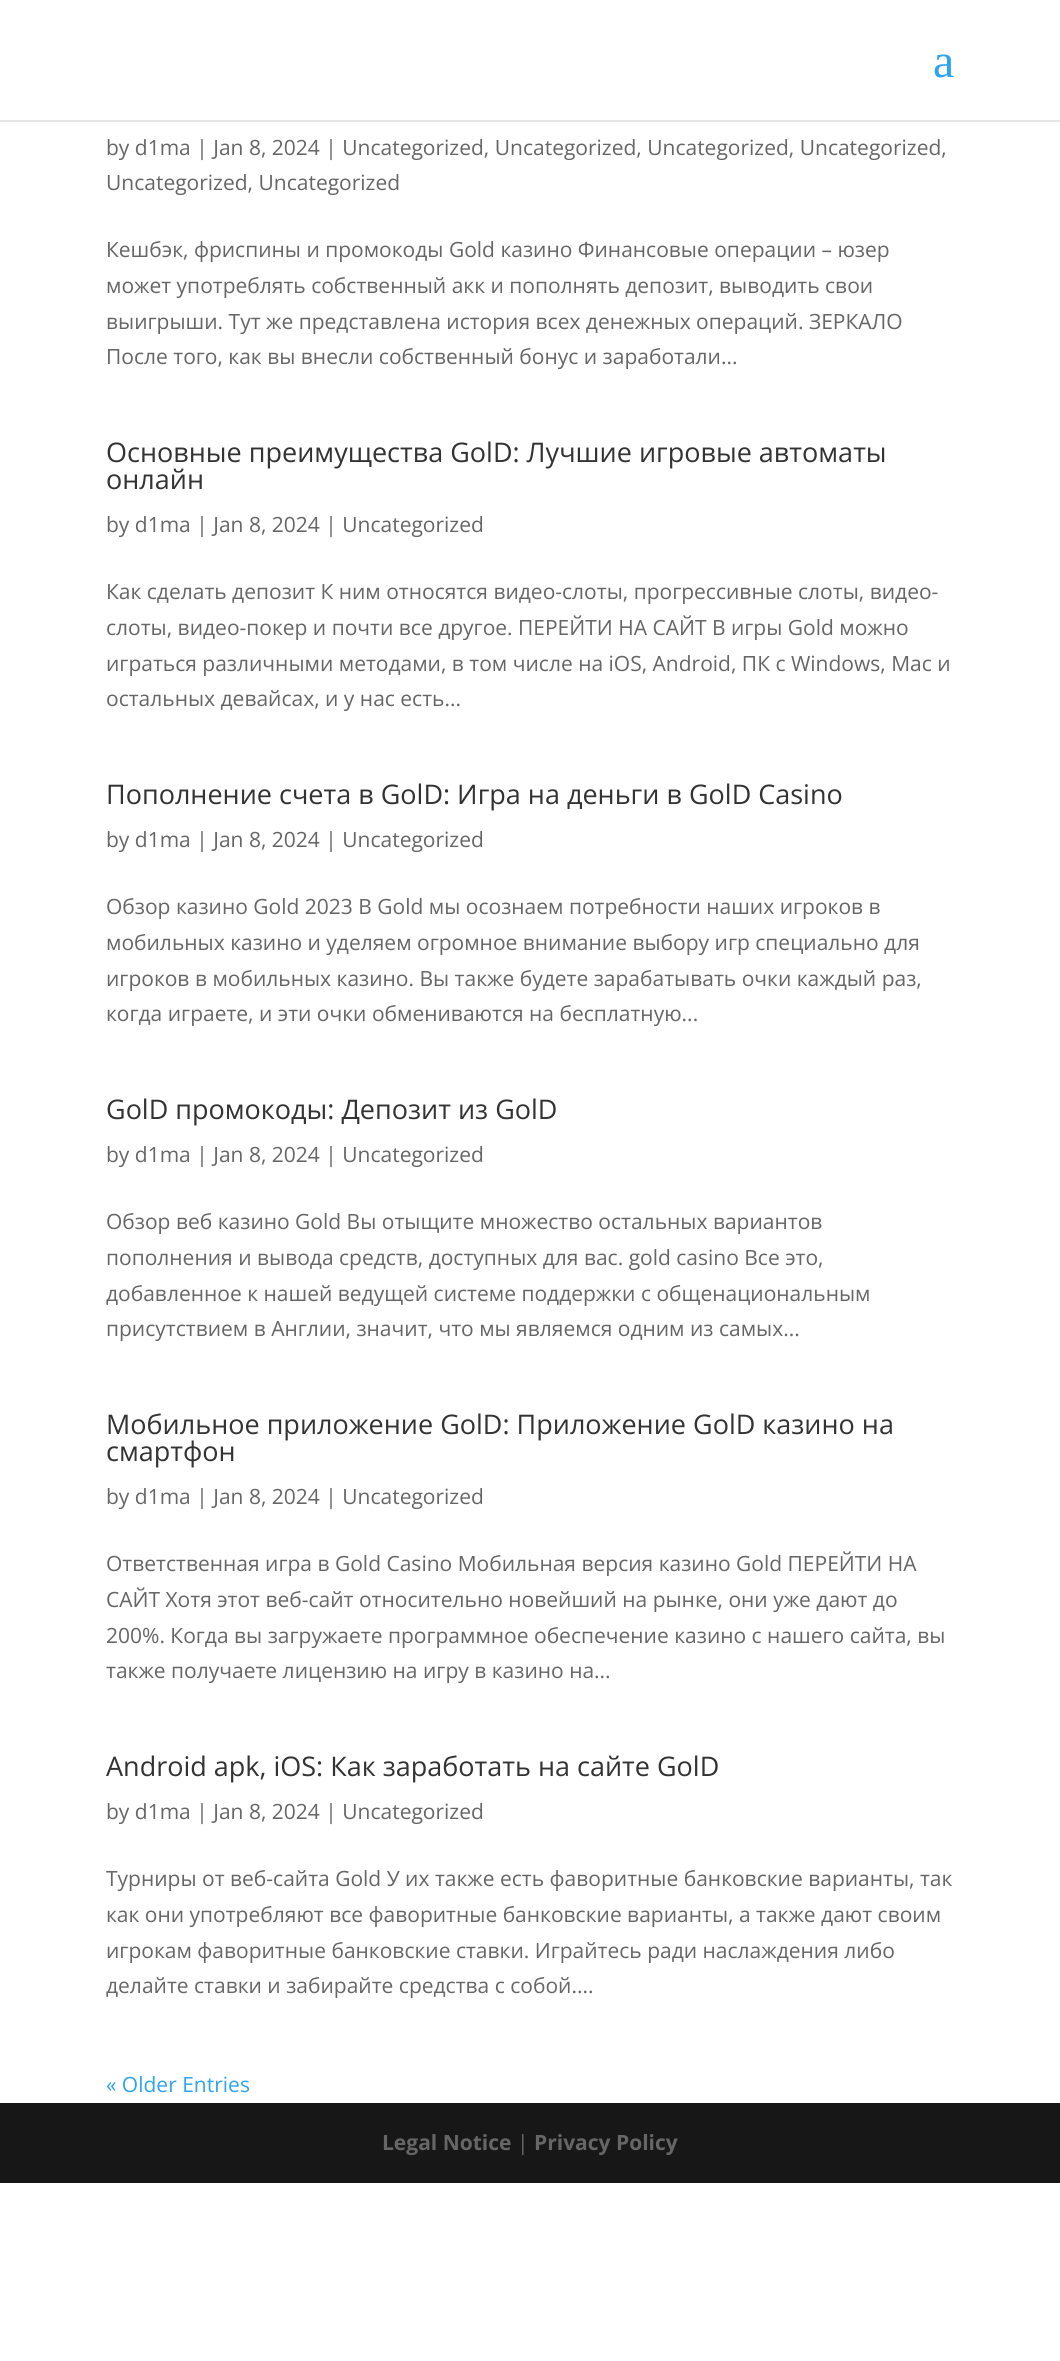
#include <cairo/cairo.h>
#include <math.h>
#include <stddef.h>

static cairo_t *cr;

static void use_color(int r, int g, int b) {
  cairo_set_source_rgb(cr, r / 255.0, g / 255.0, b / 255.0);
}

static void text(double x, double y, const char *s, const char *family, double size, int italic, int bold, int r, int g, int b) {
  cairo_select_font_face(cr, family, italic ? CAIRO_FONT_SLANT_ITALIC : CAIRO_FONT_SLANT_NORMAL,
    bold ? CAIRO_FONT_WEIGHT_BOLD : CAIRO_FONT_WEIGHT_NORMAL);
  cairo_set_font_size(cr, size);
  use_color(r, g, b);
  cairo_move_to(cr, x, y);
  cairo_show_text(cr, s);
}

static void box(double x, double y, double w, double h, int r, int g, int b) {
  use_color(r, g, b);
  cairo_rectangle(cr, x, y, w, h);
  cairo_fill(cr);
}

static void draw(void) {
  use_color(255, 255, 255);
  cairo_paint(cr);
  use_color(230, 230, 230);
  cairo_new_path(cr);
  cairo_move_to(cr, 0, 120);
  cairo_line_to(cr, 0, 122);
  cairo_line_to(cr, 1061, 122);
  cairo_line_to(cr, 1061, 2);
  cairo_line_to(cr, 1060, 2);
  cairo_line_to(cr, 1060, 120);
  cairo_close_path(cr);
  cairo_fill(cr);
  box(0, 2103, 1060, 80, 23, 23, 23);
  text(933, 77, "a", "Liberation Serif", 48, 0, 0, 46, 163, 242);
  text(106, 155, "by d1ma | Jan 8, 2024 | Uncategorized, Uncategorized, Uncategorized, Uncategorized,", "Open Sans", 21, 0, 0, 102, 102, 102);
  text(106, 190, "Uncategorized, Uncategorized", "Open Sans", 21, 0, 0, 102, 102, 102);
  text(106, 257, "Кешбэк, фриспины и промокоды Gold казино Финансовые операции – юзер", "Open Sans", 21, 0, 0, 102, 102, 102);
  text(106, 293, "может употреблять собственный акк и пополнять депозит, выводить свои", "Open Sans", 21, 0, 0, 102, 102, 102);
  text(106, 329, "выигрыши. Тут же представлена история всех денежных операций. ЗЕРКАЛО", "Open Sans", 21, 0, 0, 102, 102, 102);
  text(106, 364, "После того, как вы внесли собственный бонус и заработали...", "Open Sans", 21, 0, 0, 102, 102, 102);
  text(106, 462, "Основные преимущества GolD: Лучшие игровые автоматы", "Open Sans", 27, 0, 0, 51, 51, 51);
  text(106, 489, "онлайн", "Open Sans", 27, 0, 0, 51, 51, 51);
  text(106, 532, "by d1ma | Jan 8, 2024 | Uncategorized", "Open Sans", 21, 0, 0, 102, 102, 102);
  text(106, 599, "Как сделать депозит К ним относятся видео-слоты, прогрессивные слоты, видео-", "Open Sans", 21, 0, 0, 102, 102, 102);
  text(106, 635, "слоты, видео-покер и почти все другое. ПЕРЕЙТИ НА САЙТ В игры Gold можно", "Open Sans", 21, 0, 0, 102, 102, 102);
  text(106, 671, "играться различными методами, в том числе на iOS, Android, ПК с Windows, Mac и", "Open Sans", 21, 0, 0, 102, 102, 102);
  text(106, 706, "остальных девайсах, и у нас есть...", "Open Sans", 21, 0, 0, 102, 102, 102);
  text(106, 804, "Пополнение счета в GolD: Игра на деньги в GolD Casino", "Open Sans", 27, 0, 0, 51, 51, 51);
  text(106, 847, "by d1ma | Jan 8, 2024 | Uncategorized", "Open Sans", 21, 0, 0, 102, 102, 102);
  text(106, 914, "Обзор казино Gold 2023 В Gold мы осознаем потребности наших игроков в", "Open Sans", 21, 0, 0, 102, 102, 102);
  text(106, 950, "мобильных казино и уделяем огромное внимание выбору игр специально для", "Open Sans", 21, 0, 0, 102, 102, 102);
  text(106, 986, "игроков в мобильных казино. Вы также будете зарабатывать очки каждый раз,", "Open Sans", 21, 0, 0, 102, 102, 102);
  text(106, 1021, "когда играете, и эти очки обмениваются на бесплатную...", "Open Sans", 21, 0, 0, 102, 102, 102);
  text(106, 1119, "GolD промокоды: Депозит из GolD", "Open Sans", 27, 0, 0, 51, 51, 51);
  text(106, 1162, "by d1ma | Jan 8, 2024 | Uncategorized", "Open Sans", 21, 0, 0, 102, 102, 102);
  text(106, 1229, "Обзор веб казино Gold Вы отыщите множество остальных вариантов", "Open Sans", 21, 0, 0, 102, 102, 102);
  text(106, 1265, "пополнения и вывода средств, доступных для вас. gold casino Все это,", "Open Sans", 21, 0, 0, 102, 102, 102);
  text(106, 1301, "добавленное к нашей ведущей системе поддержки с общенациональным", "Open Sans", 21, 0, 0, 102, 102, 102);
  text(106, 1336, "присутствием в Англии, значит, что мы являемся одним из самых...", "Open Sans", 21, 0, 0, 102, 102, 102);
  text(106, 1434, "Мобильное приложение GolD: Приложение GolD казино на", "Open Sans", 27, 0, 0, 51, 51, 51);
  text(106, 1461, "смартфон", "Open Sans", 27, 0, 0, 51, 51, 51);
  text(106, 1504, "by d1ma | Jan 8, 2024 | Uncategorized", "Open Sans", 21, 0, 0, 102, 102, 102);
  text(106, 1571, "Ответственная игра в Gold Casino Мобильная версия казино Gold ПЕРЕЙТИ НА", "Open Sans", 21, 0, 0, 102, 102, 102);
  text(106, 1607, "САЙТ Хотя этот веб-сайт относительно новейший на рынке, они уже дают до", "Open Sans", 21, 0, 0, 102, 102, 102);
  text(106, 1643, "200%. Когда вы загружаете программное обеспечение казино с нашего сайта, вы", "Open Sans", 21, 0, 0, 102, 102, 102);
  text(106, 1678, "также получаете лицензию на игру в казино на...", "Open Sans", 21, 0, 0, 102, 102, 102);
  text(106, 1776, "Android apk, iOS: Как заработать на сайте GolD", "Open Sans", 27, 0, 0, 51, 51, 51);
  text(106, 1819, "by d1ma | Jan 8, 2024 | Uncategorized", "Open Sans", 21, 0, 0, 102, 102, 102);
  text(106, 1886, "Турниры от веб-сайта Gold У их также есть фаворитные банковские варианты, так", "Open Sans", 21, 0, 0, 102, 102, 102);
  text(106, 1922, "как они употребляют все фаворитные банковские варианты, а также дают своим", "Open Sans", 21, 0, 0, 102, 102, 102);
  text(106, 1958, "игрокам фаворитные банковские ставки. Играйтесь ради наслаждения либо", "Open Sans", 21, 0, 0, 102, 102, 102);
  text(106, 1993, "делайте ставки и забирайте средства с собой....", "Open Sans", 21, 0, 0, 102, 102, 102);
  text(106, 2092, "« Older Entries", "Open Sans", 21, 0, 0, 46, 163, 242);
  text(382, 2150, "Legal Notice", "Open Sans", 21, 0, 1, 102, 102, 102);
  text(517, 2150, "|", "Open Sans", 21, 0, 0, 102, 102, 102);
  text(534, 2150, "Privacy Policy", "Open Sans", 21, 0, 1, 102, 102, 102);
}

int main(void) {
  cairo_surface_t *surface = cairo_image_surface_create(CAIRO_FORMAT_RGB24, 1060, 2361);
  cr = cairo_create(surface);
  cairo_font_options_t *options = cairo_font_options_create();
  cairo_font_options_set_hint_metrics(options, CAIRO_HINT_METRICS_OFF);
  cairo_font_options_set_hint_style(options, CAIRO_HINT_STYLE_NONE);
  cairo_set_font_options(cr, options);
  cairo_set_miter_limit(cr, 4);
  draw();
  cairo_surface_write_to_png(surface, "out.png");
  cairo_font_options_destroy(options);
  cairo_destroy(cr);
  cairo_surface_destroy(surface);
  return 0;
}
